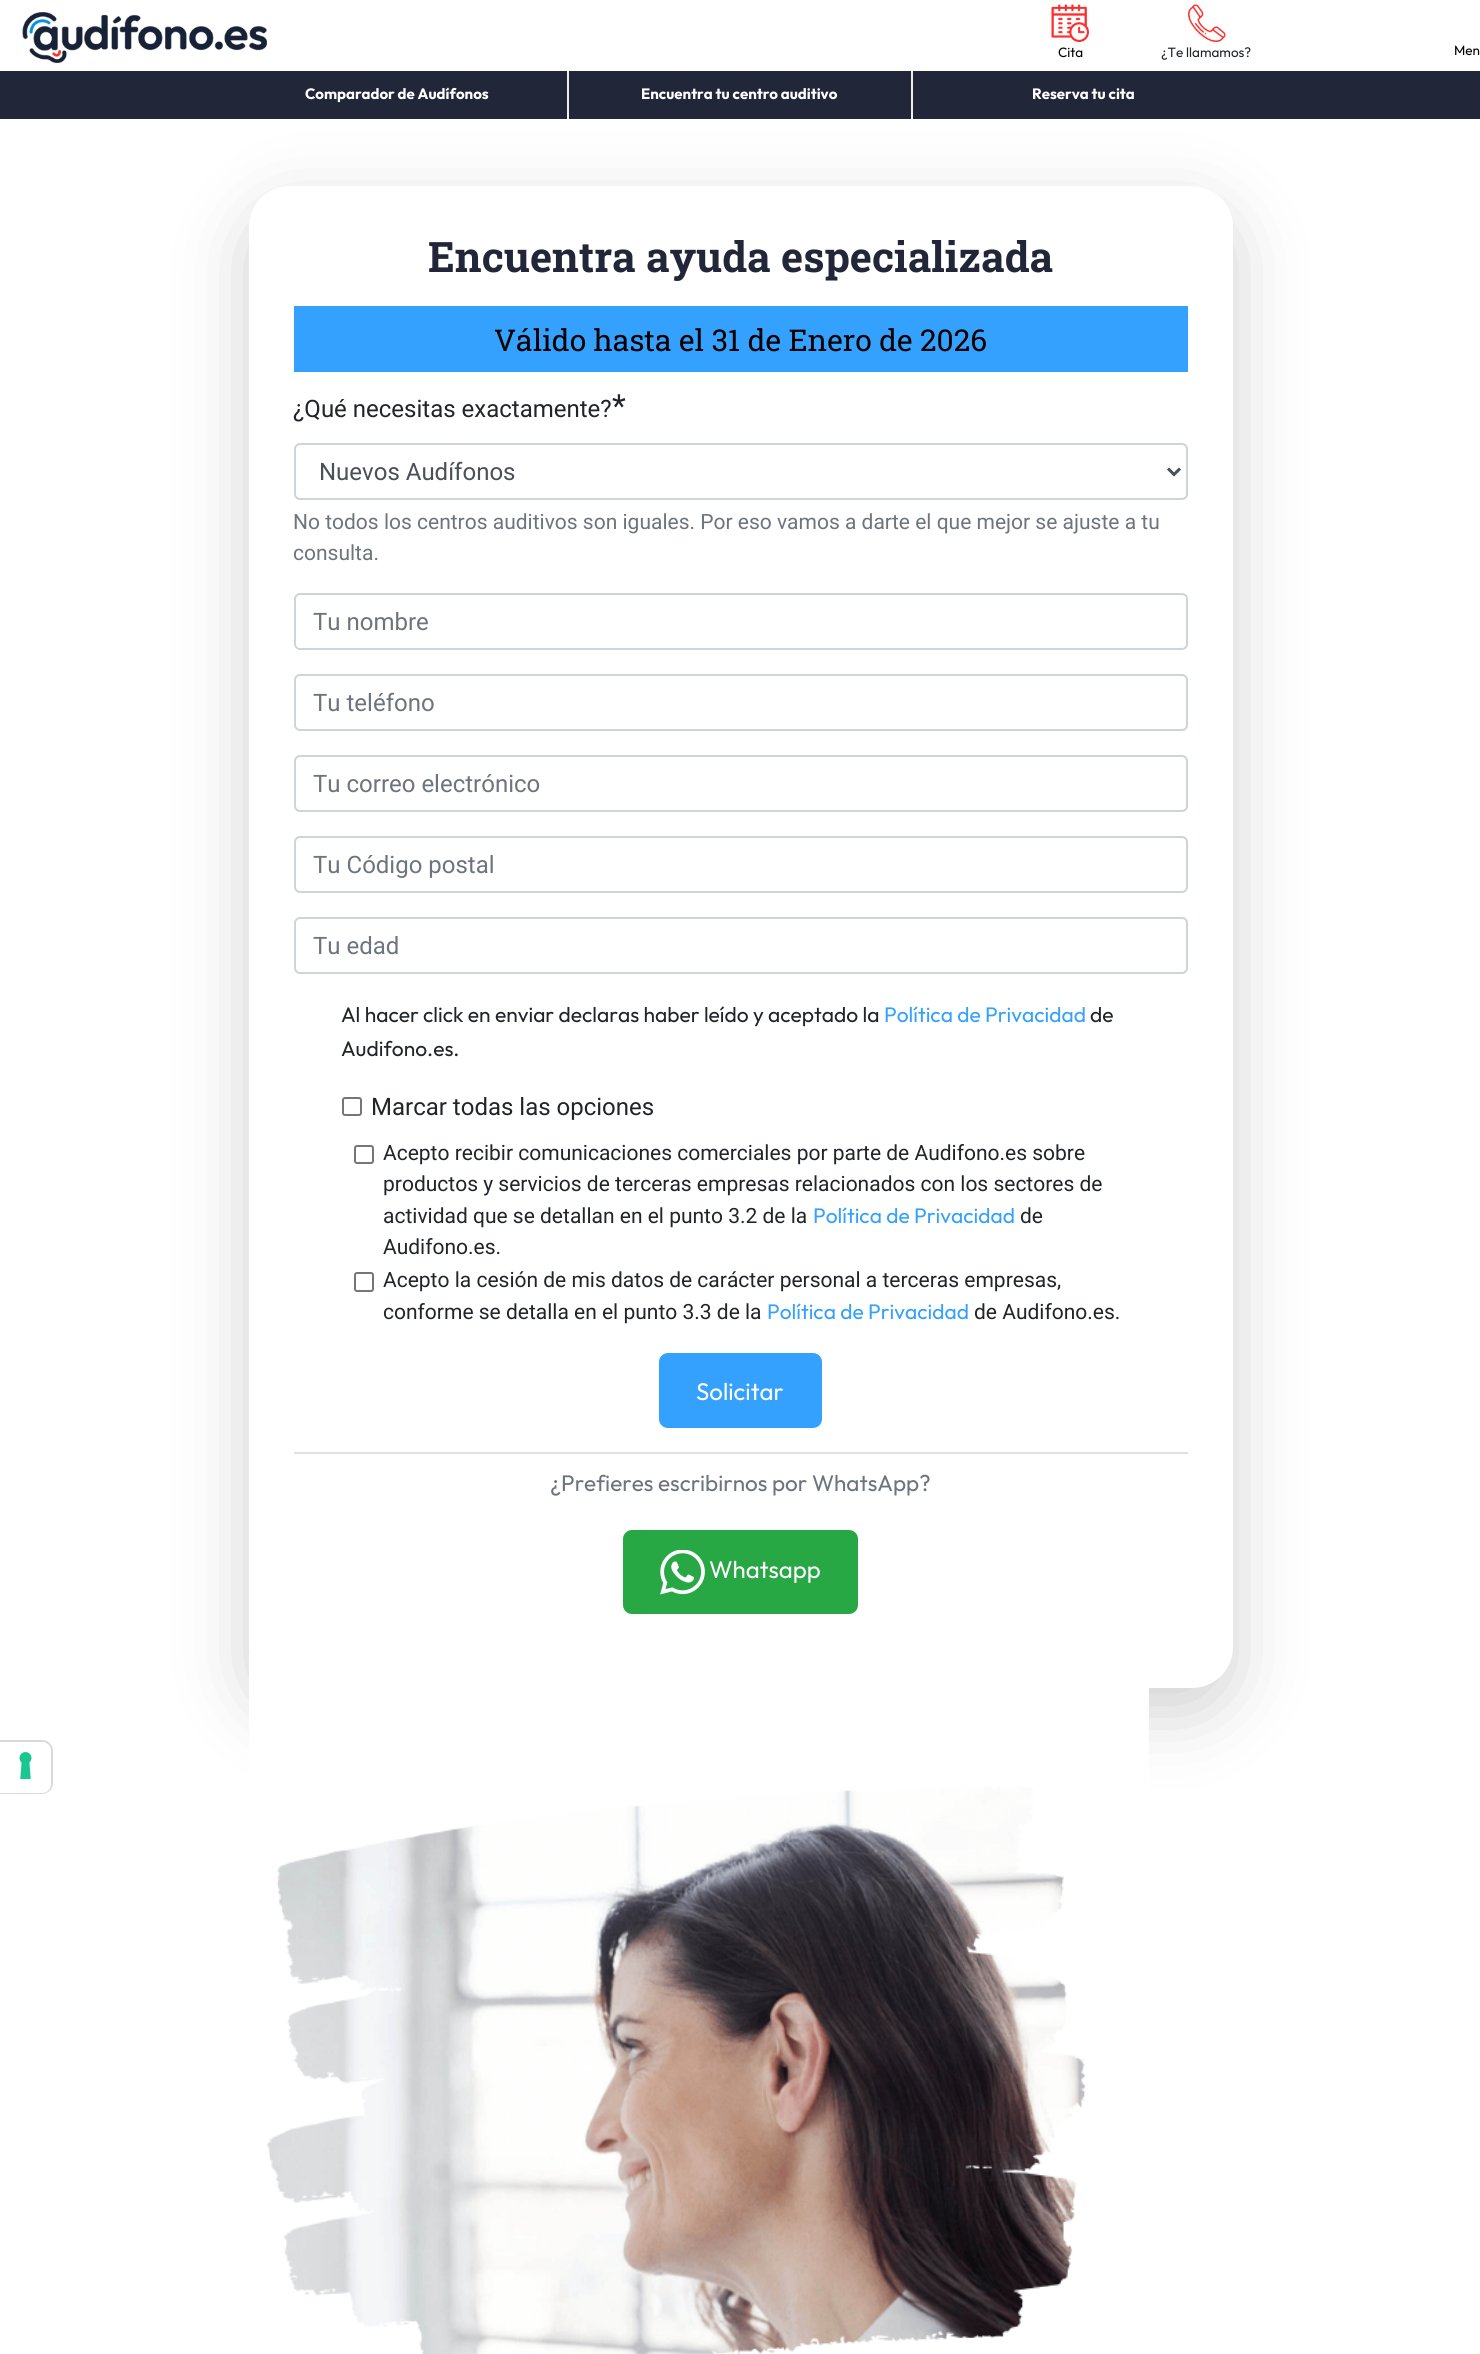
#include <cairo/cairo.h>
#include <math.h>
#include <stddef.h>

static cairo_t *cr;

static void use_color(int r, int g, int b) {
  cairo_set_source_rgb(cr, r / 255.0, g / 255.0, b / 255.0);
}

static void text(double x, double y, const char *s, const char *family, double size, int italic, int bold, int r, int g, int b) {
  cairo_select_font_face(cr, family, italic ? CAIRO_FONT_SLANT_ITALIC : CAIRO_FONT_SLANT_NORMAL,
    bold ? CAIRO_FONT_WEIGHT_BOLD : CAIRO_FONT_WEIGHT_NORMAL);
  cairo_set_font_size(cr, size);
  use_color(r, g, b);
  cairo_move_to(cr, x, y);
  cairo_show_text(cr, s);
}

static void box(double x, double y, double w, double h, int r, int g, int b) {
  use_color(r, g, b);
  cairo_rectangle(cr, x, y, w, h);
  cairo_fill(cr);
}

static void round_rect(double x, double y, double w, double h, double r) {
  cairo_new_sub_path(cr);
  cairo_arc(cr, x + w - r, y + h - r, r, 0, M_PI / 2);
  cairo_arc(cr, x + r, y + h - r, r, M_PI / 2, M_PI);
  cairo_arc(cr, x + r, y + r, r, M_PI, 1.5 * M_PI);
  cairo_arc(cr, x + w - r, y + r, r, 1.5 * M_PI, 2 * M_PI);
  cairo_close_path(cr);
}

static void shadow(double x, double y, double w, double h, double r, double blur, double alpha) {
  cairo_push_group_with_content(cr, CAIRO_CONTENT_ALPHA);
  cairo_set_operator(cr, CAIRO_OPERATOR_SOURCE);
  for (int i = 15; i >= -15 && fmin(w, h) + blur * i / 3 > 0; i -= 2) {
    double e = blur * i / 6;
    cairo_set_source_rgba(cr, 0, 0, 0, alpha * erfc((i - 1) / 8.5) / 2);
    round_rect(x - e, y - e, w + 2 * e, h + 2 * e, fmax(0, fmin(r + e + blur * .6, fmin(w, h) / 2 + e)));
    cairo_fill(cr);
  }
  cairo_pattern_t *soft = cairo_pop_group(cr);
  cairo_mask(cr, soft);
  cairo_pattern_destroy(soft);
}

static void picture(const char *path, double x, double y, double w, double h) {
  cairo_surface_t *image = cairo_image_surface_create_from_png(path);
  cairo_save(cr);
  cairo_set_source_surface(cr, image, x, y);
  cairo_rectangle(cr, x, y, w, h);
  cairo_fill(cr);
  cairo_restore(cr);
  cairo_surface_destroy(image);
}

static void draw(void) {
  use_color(255, 255, 255);
  cairo_paint(cr);
  picture("img_01.png", 22, 12, 245, 51);
  picture("img_02.png", 1051, 4, 38, 38);
  picture("img_03.png", 1188, 4, 38, 38);
  box(0, 71, 1480, 48, 33, 39, 56);
  box(567, 71, 2, 48, 238, 238, 238);
  box(911, 71, 2, 48, 238, 238, 238);
  use_color(0, 0, 0);
  shadow(249, 210, 984, 1502, 41, 36, 0.18);
  use_color(255, 255, 255);
  round_rect(249, 186, 984, 1502, 41);
  cairo_fill(cr);
  box(294, 306, 894, 66, 51, 161, 253);
  round_rect(295, 444, 892, 55, 5);
  use_color(206, 212, 218);
  cairo_stroke(cr);
  cairo_new_path(cr);
  cairo_move_to(cr, 1168, 468.5);
  cairo_line_to(cr, 1174, 474.5);
  cairo_line_to(cr, 1180, 468.5);
  use_color(73, 80, 87);
  cairo_set_line_width(cr, 3);
  cairo_stroke(cr);
  round_rect(295, 594, 892, 55, 5);
  use_color(206, 212, 218);
  cairo_set_line_width(cr, 2);
  cairo_stroke(cr);
  round_rect(295, 675, 892, 55, 5);
  cairo_stroke(cr);
  round_rect(295, 756, 892, 55, 5);
  cairo_stroke(cr);
  round_rect(295, 837, 892, 55, 5);
  cairo_stroke(cr);
  round_rect(295, 918, 892, 55, 5);
  cairo_stroke(cr);
  round_rect(343, 1098, 18, 17, 2);
  use_color(118, 118, 118);
  cairo_stroke(cr);
  round_rect(355, 1146, 18, 17, 2);
  cairo_stroke(cr);
  round_rect(355, 1273, 18, 18, 2);
  cairo_stroke(cr);
  use_color(51, 161, 253);
  round_rect(660, 1354, 161, 73, 8);
  cairo_fill_preserve(cr);
  cairo_stroke(cr);
  box(294, 1452, 894, 2, 222, 226, 230);
  use_color(40, 167, 69);
  round_rect(624, 1531, 233, 82, 8);
  cairo_fill_preserve(cr);
  cairo_stroke(cr);
  picture("img_04.png", 660, 1550, 45, 45);
  picture("img_05.png", 249, 1653, 900, 701);
  cairo_new_path(cr);
  cairo_move_to(cr, 0, 1741);
  cairo_line_to(cr, 42, 1741);
  cairo_curve_to(cr, 47.5, 1741, 52, 1745.5, 52, 1751);
  cairo_line_to(cr, 52, 1783);
  cairo_curve_to(cr, 52, 1788.5, 47.5, 1793, 42, 1793);
  cairo_line_to(cr, 0, 1793);
  cairo_close_path(cr);
  use_color(217, 217, 217);
  cairo_stroke(cr);
  use_color(255, 255, 255);
  cairo_new_path(cr);
  cairo_move_to(cr, 0, 1742);
  cairo_line_to(cr, 42, 1742);
  cairo_curve_to(cr, 47, 1742, 51, 1746, 51, 1751);
  cairo_line_to(cr, 51, 1784);
  cairo_curve_to(cr, 51, 1789, 47, 1793, 42, 1793);
  cairo_line_to(cr, 0, 1793);
  cairo_close_path(cr);
  cairo_fill(cr);
  picture("img_06.png", 19, 1752, 13, 27);
  text(1058, 57, "Cita", "Outfit", 13.5, 0, 0, 0, 0, 0);
  text(1161, 57, "¿Te llamamos?", "Outfit", 13.5, 0, 0, 33, 37, 41);
  text(1454, 55, "Men", "Outfit", 13.5, 0, 0, 0, 0, 0);
  text(305, 99, "Comparador de Audífonos", "Outfit", 15, 0, 1, 255, 255, 255);
  text(641, 99, "Encuentra tu centro auditivo", "Outfit", 15, 0, 1, 255, 255, 255);
  text(1032, 99, "Reserva tu cita", "Outfit", 15, 0, 1, 255, 255, 255);
  text(428, 272, "Encuentra ayuda especializada", "Roboto Slab", 42, 0, 1, 33, 39, 56);
  text(494, 351, "Válido hasta el 31 de Enero de 2026", "Roboto Slab", 30, 0, 0, 0, 0, 0);
  text(293, 417, "¿Qué necesitas exactamente?", "Roboto", 24, 0, 0, 33, 37, 41);
  text(612, 417, "*", "Roboto", 32, 0, 0, 33, 37, 41);
  text(319, 480, "Nuevos Audífonos", "Roboto", 24, 0, 0, 73, 80, 87);
  text(293, 529, "No todos los centros auditivos son iguales. Por eso vamos a darte el que mejor se ajuste a tu", "Roboto", 21, 0, 0, 108, 117, 125);
  text(293, 560, "consulta.", "Roboto", 21, 0, 0, 108, 117, 125);
  text(313, 630, "Tu nombre", "Roboto", 24, 0, 0, 108, 117, 125);
  text(313, 711, "Tu teléfono", "Roboto", 24, 0, 0, 108, 117, 125);
  text(313, 792, "Tu correo electrónico", "Roboto", 24, 0, 0, 108, 117, 125);
  text(313, 873, "Tu Código postal", "Roboto", 24, 0, 0, 108, 117, 125);
  text(313, 954, "Tu edad", "Roboto", 24, 0, 0, 108, 117, 125);
  text(341, 1022, "Al hacer click en enviar declaras haber leído y aceptado la", "Outfit", 21, 0, 0, 33, 37, 41);
  text(884, 1022, "Política de Privacidad", "Outfit", 21, 0, 0, 51, 161, 253);
  text(1090, 1022, "de", "Outfit", 21, 0, 0, 33, 37, 41);
  text(341, 1056, "Audifono.es.", "Outfit", 21, 0, 0, 33, 37, 41);
  text(371, 1115, "Marcar todas las opciones", "Roboto", 24, 0, 0, 33, 37, 41);
  text(383, 1160, "Acepto recibir comunicaciones comerciales por parte de Audifono.es sobre", "Roboto", 21, 0, 0, 33, 37, 41);
  text(383, 1191, "productos y servicios de terceras empresas relacionados con los sectores de", "Roboto", 21, 0, 0, 33, 37, 41);
  text(383, 1223, "actividad que se detallan en el punto 3.2 de la", "Roboto", 21, 0, 0, 33, 37, 41);
  text(813, 1223, "Política de Privacidad", "Outfit", 21, 0, 0, 51, 161, 253);
  text(1020, 1223, "de", "Roboto", 21, 0, 0, 33, 37, 41);
  text(383, 1254, "Audifono.es.", "Roboto", 21, 0, 0, 33, 37, 41);
  text(383, 1287, "Acepto la cesión de mis datos de carácter personal a terceras empresas,", "Roboto", 21, 0, 0, 33, 37, 41);
  text(383, 1319, "conforme se detalla en el punto 3.3 de la", "Roboto", 21, 0, 0, 33, 37, 41);
  text(767, 1319, "Política de Privacidad", "Outfit", 21, 0, 0, 51, 161, 253);
  text(974, 1319, "de Audifono.es.", "Roboto", 21, 0, 0, 33, 37, 41);
  text(696, 1400, "Solicitar", "Outfit", 24, 0, 0, 255, 255, 255);
  text(550, 1491, "¿Prefieres escribirnos por WhatsApp?", "Outfit", 22.5, 0, 0, 108, 117, 125);
  text(709, 1578, "Whatsapp", "Outfit", 24, 0, 0, 255, 255, 255);
}

int main(void) {
  cairo_surface_t *surface = cairo_image_surface_create(CAIRO_FORMAT_RGB24, 1480, 2354);
  cr = cairo_create(surface);
  cairo_font_options_t *options = cairo_font_options_create();
  cairo_font_options_set_hint_metrics(options, CAIRO_HINT_METRICS_OFF);
  cairo_font_options_set_hint_style(options, CAIRO_HINT_STYLE_NONE);
  cairo_set_font_options(cr, options);
  cairo_set_miter_limit(cr, 4);
  draw();
  cairo_surface_write_to_png(surface, "out.png");
  cairo_font_options_destroy(options);
  cairo_destroy(cr);
  cairo_surface_destroy(surface);
  return 0;
}
